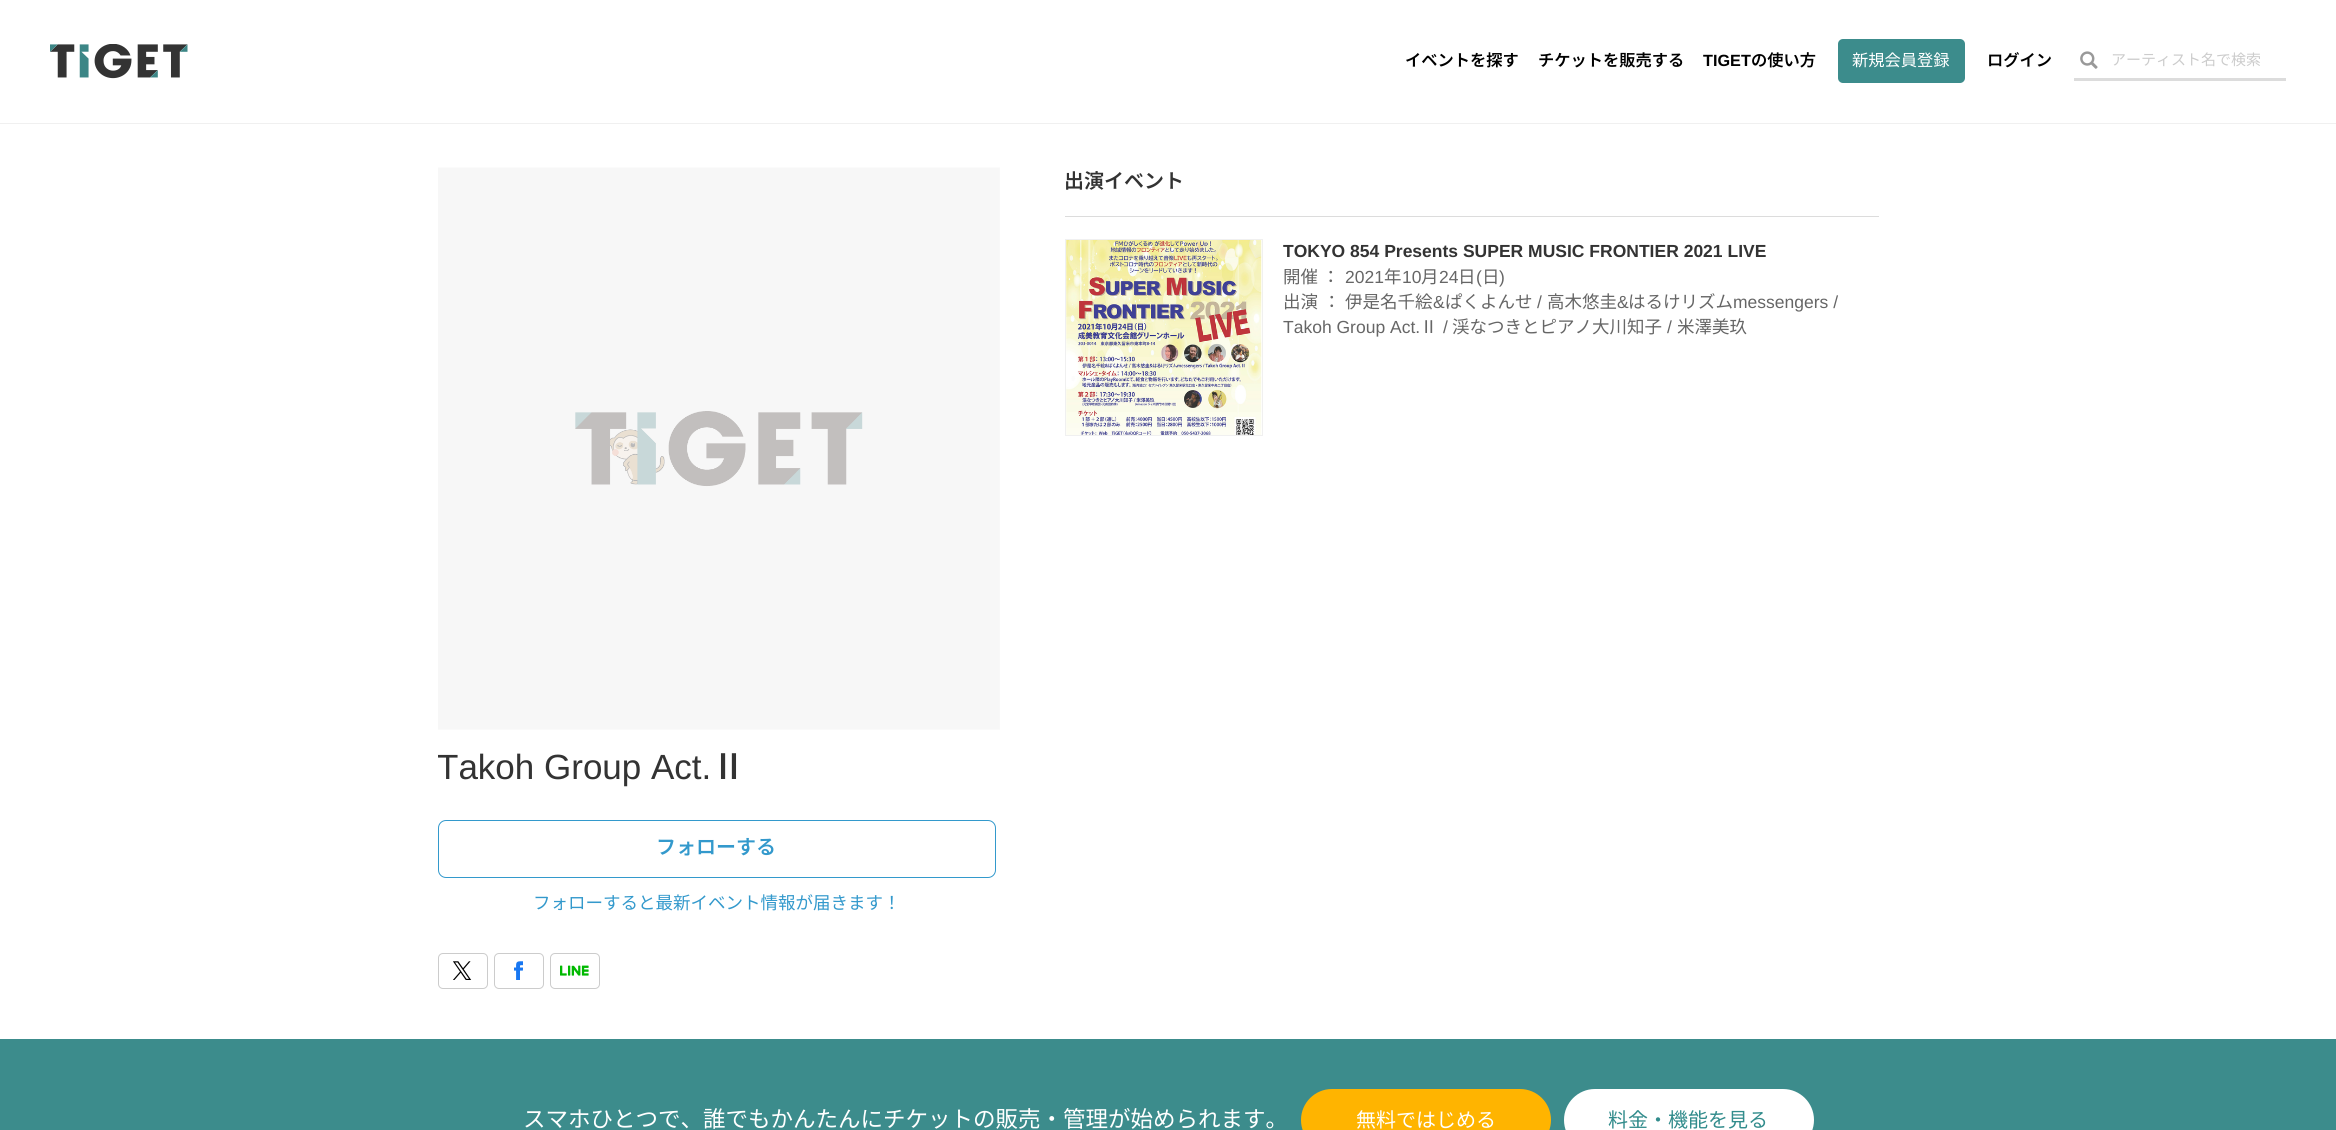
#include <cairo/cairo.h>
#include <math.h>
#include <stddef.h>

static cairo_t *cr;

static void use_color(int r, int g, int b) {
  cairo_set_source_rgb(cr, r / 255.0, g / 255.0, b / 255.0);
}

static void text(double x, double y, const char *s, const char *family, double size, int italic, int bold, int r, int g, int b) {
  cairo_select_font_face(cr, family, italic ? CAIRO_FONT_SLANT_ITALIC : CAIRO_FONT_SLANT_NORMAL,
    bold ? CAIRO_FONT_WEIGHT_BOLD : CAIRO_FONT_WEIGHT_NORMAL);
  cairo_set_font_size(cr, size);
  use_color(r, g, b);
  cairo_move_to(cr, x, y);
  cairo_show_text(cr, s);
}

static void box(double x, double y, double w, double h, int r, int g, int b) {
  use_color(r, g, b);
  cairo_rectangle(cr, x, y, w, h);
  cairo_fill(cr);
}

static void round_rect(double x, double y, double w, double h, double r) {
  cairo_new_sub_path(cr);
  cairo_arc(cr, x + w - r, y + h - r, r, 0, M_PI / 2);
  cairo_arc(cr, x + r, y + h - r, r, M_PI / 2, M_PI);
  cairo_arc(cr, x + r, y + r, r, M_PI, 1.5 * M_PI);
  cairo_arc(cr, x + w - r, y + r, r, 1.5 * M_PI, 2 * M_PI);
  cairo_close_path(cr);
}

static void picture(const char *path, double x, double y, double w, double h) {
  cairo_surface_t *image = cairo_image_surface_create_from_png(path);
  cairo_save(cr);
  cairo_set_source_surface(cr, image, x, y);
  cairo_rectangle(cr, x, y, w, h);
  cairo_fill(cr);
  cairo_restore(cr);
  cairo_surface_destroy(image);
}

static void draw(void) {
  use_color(255, 255, 255);
  cairo_paint(cr);
  box(0, 123, 2336, 1, 240, 240, 240);
  picture("img_01.png", 50, 44, 138, 35);
  use_color(60, 140, 140);
  round_rect(1838, 39, 127, 44, 5);
  cairo_fill(cr);
  picture("img_02.png", 2080, 51, 18, 18);
  box(2074, 78, 212, 3, 220, 220, 220);
  box(1065, 216, 814, 1, 220, 220, 220);
  cairo_rectangle(cr, 1065.5, 239.5, 197, 196);
  use_color(240, 240, 240);
  cairo_set_line_width(cr, 1);
  cairo_stroke(cr);
  picture("img_03.png", 1066, 240, 196, 195);
  picture("img_04.png", 438, 167, 562, 563);
  round_rect(438.5, 820.5, 557, 57, 7.5);
  use_color(51, 153, 204);
  cairo_stroke(cr);
  round_rect(438.5, 953.5, 49, 35, 4.5);
  use_color(204, 204, 204);
  cairo_stroke(cr);
  picture("img_05.png", 453, 961, 19, 19);
  round_rect(494.5, 953.5, 49, 35, 4.5);
  cairo_stroke(cr);
  picture("img_06.png", 514, 961, 9, 19);
  round_rect(550.5, 953.5, 49, 35, 4.5);
  cairo_stroke(cr);
  picture("img_07.png", 560, 965, 29, 11);
  box(0, 1039, 2336, 91, 60, 140, 140);
  use_color(255, 180, 0);
  round_rect(1301, 1089, 250, 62, 31);
  cairo_fill(cr);
  use_color(255, 255, 255);
  round_rect(1564, 1089, 250, 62, 31);
  cairo_fill(cr);
  text(1405, 66, "イベントを探す", "Noto Sans JP SemiBold", 16.25, 0, 0, 0, 0, 0);
  text(1538, 66, "チケットを販売する", "Noto Sans JP SemiBold", 16.25, 0, 0, 0, 0, 0);
  text(1703, 66, "TIGET", "Liberation Sans", 16.25, 0, 1, 0, 0, 0);
  text(1751, 66, "の使い方", "Noto Sans JP SemiBold", 16.25, 0, 0, 0, 0, 0);
  text(1852, 66, "新規会員登録", "Noto Sans JP", 16.25, 0, 0, 255, 255, 255);
  text(1987, 66, "ログイン", "Noto Sans JP SemiBold", 16.25, 0, 0, 0, 0, 0);
  text(2111, 65, "アーティスト名で検索", "Noto Sans JP", 15, 0, 0, 204, 204, 204);
  text(1064, 188, "出演イベント", "Noto Sans JP SemiBold", 20, 0, 0, 51, 51, 51);
  text(1283, 257, "TOKYO 854 Presents SUPER MUSIC FRONTIER 2021 LIVE", "Liberation Sans", 17.5, 0, 1, 51, 51, 51);
  text(1283, 283, "開催 ：", "Noto Sans JP", 17.5, 0, 0, 102, 102, 102);
  text(1345, 283, "2021", "Liberation Sans", 17.5, 0, 0, 102, 102, 102);
  text(1384, 283, "年", "Noto Sans JP", 17.5, 0, 0, 102, 102, 102);
  text(1402, 283, "10", "Liberation Sans", 17.5, 0, 0, 102, 102, 102);
  text(1421, 283, "月", "Noto Sans JP", 17.5, 0, 0, 102, 102, 102);
  text(1439, 283, "24", "Liberation Sans", 17.5, 0, 0, 102, 102, 102);
  text(1458, 283, "日", "Noto Sans JP", 17.5, 0, 0, 102, 102, 102);
  text(1476, 283, "(", "Liberation Sans", 17.5, 0, 0, 102, 102, 102);
  text(1482, 283, "日", "Noto Sans JP", 17.5, 0, 0, 102, 102, 102);
  text(1499, 283, ")", "Liberation Sans", 17.5, 0, 0, 102, 102, 102);
  text(1283, 308, "出演", "Noto Sans JP", 17.5, 0, 0, 102, 102, 102);
  text(1323, 308, "：", "Noto Sans JP", 17.5, 0, 0, 102, 102, 102);
  text(1345, 308, "伊是名千絵", "Noto Sans JP", 17.5, 0, 0, 102, 102, 102);
  text(1433, 308, "&", "Liberation Sans", 17.5, 0, 0, 102, 102, 102);
  text(1445, 308, "ぱくよんせ", "Noto Sans JP", 17.5, 0, 0, 102, 102, 102);
  text(1537, 308, "/", "Liberation Sans", 17.5, 0, 0, 102, 102, 102);
  text(1547, 308, "高木悠圭", "Noto Sans JP", 17.5, 0, 0, 102, 102, 102);
  text(1617, 308, "&", "Liberation Sans", 17.5, 0, 0, 102, 102, 102);
  text(1628, 308, "はるけリズム", "Noto Sans JP", 17.5, 0, 0, 102, 102, 102);
  text(1733, 308, "messengers /", "Liberation Sans", 17.5, 0, 0, 102, 102, 102);
  text(1283, 333, "Takoh Group Act.", "Liberation Sans", 17.5, 0, 0, 102, 102, 102);
  text(1420, 333, "Ⅱ", "Noto Sans JP", 17.5, 0, 0, 102, 102, 102);
  text(1443, 333, "/", "Liberation Sans", 17.5, 0, 0, 102, 102, 102);
  text(1452, 333, "渓なつきとピアノ大川知子", "Noto Sans JP", 17.5, 0, 0, 102, 102, 102);
  text(1667, 333, "/", "Liberation Sans", 17.5, 0, 0, 102, 102, 102);
  text(1677, 333, "米澤美玖", "Noto Sans JP", 17.5, 0, 0, 102, 102, 102);
  cairo_save(cr);
  cairo_rectangle(cr, 438, 743, 558, 197);
  cairo_clip(cr);
  text(437, 779, "Takoh Group Act.", "Liberation Sans", 35, 0, 0, 51, 51, 51);
  cairo_restore(cr);
  text(711, 779, "Ⅱ", "Noto Sans JP Medium", 35, 0, 0, 51, 51, 51);
  text(656, 854, "フォローする", "Noto Sans JP SemiBold", 20, 0, 0, 51, 153, 204);
  text(533, 909, "フォローすると最新イベント情報が届きます！", "Noto Sans JP", 17.5, 0, 0, 51, 153, 204);
  text(523, 1127, "スマホひとつで、誰でもかんたんにチケットの販売・管理が始められます。", "Noto Sans JP", 22.5, 0, 0, 255, 255, 255);
  text(1356, 1127, "無料ではじめる", "Noto Sans JP", 20, 0, 0, 255, 255, 255);
  text(1608, 1127, "料金・機能を見る", "Noto Sans JP", 20, 0, 0, 50, 140, 140);
}

int main(void) {
  cairo_surface_t *surface = cairo_image_surface_create(CAIRO_FORMAT_RGB24, 2336, 1130);
  cr = cairo_create(surface);
  cairo_font_options_t *options = cairo_font_options_create();
  cairo_font_options_set_hint_metrics(options, CAIRO_HINT_METRICS_OFF);
  cairo_font_options_set_hint_style(options, CAIRO_HINT_STYLE_NONE);
  cairo_set_font_options(cr, options);
  cairo_set_miter_limit(cr, 4);
  draw();
  cairo_surface_write_to_png(surface, "out.png");
  cairo_font_options_destroy(options);
  cairo_destroy(cr);
  cairo_surface_destroy(surface);
  return 0;
}
